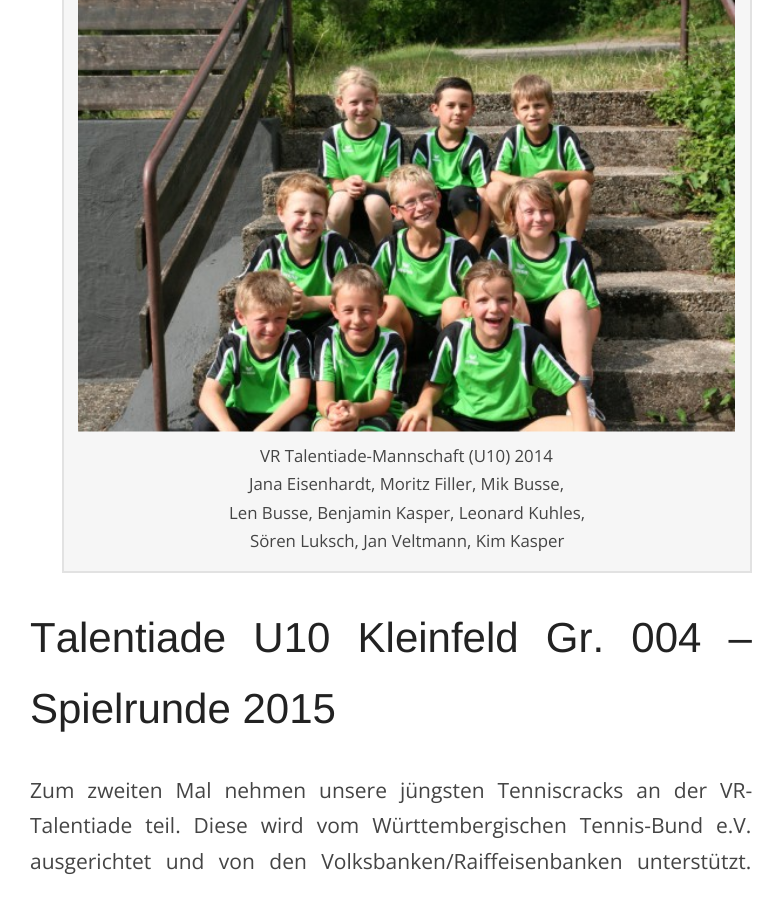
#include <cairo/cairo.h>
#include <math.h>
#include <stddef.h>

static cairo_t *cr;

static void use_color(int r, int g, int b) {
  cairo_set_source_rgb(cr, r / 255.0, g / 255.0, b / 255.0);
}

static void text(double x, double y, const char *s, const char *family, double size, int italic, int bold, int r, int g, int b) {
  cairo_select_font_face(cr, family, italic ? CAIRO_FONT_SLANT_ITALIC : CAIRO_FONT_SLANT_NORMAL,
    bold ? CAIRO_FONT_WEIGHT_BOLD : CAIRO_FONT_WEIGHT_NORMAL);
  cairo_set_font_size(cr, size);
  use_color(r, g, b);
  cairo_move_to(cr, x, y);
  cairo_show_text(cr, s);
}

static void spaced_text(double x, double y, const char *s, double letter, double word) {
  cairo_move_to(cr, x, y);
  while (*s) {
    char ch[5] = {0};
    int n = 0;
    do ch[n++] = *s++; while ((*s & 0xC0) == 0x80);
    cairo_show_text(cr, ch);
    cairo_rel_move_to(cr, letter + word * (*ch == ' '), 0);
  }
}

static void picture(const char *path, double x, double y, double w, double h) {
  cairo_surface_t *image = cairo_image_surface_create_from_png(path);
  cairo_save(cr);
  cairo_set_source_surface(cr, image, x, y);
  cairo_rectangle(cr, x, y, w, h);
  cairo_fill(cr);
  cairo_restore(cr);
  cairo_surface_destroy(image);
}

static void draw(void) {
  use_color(255, 255, 255);
  cairo_paint(cr);
  use_color(246, 246, 246);
  cairo_rectangle(cr, 63, -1, 688, 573);
  cairo_fill_preserve(cr);
  use_color(226, 226, 226);
  cairo_stroke(cr);
  picture("img_01.png", 78, 0, 657, 432);
  text(260, 462, "VR Talentiade-Mannschaft (U10) 2014", "Open Sans", 16.8, 0, 0, 68, 68, 68);
  text(249, 490, "Jana Eisenhardt, Moritz Filler, Mik Busse,", "Open Sans", 16.8, 0, 0, 68, 68, 68);
  text(229, 519, "Len Busse, Benjamin Kasper, Leonard Kuhles,", "Open Sans", 16.8, 0, 0, 68, 68, 68);
  text(250, 547, "Sören Luksch, Jan Veltmann, Kim Kasper", "Open Sans", 16.8, 0, 0, 68, 68, 68);
  cairo_select_font_face(cr, "Liberation Sans", CAIRO_FONT_SLANT_NORMAL, CAIRO_FONT_WEIGHT_NORMAL);
  cairo_set_font_size(cr, 42);
  use_color(34, 34, 34);
  spaced_text(30, 652, "Talentiade U10 Kleinfeld Gr. 004 –", 0, 15.5);
  text(30, 723, "Spielrunde 2015", "Liberation Sans", 42, 0, 0, 34, 34, 34);
  cairo_select_font_face(cr, "Open Sans", CAIRO_FONT_SLANT_NORMAL, CAIRO_FONT_WEIGHT_NORMAL);
  cairo_set_font_size(cr, 21);
  use_color(68, 68, 68);
  spaced_text(30, 798, "Zum zweiten Mal nehmen unsere jüngsten Tenniscracks an der VR-", 0, 7.5);
  spaced_text(30, 833, "Talentiade teil. Diese wird vom Württembergischen Tennis-Bund e.V.", 0, 7.5);
  spaced_text(30, 869, "ausgerichtet und von den Volksbanken/Raiffeisenbanken unterstützt.", 0, 9);
}

int main(void) {
  cairo_surface_t *surface = cairo_image_surface_create(CAIRO_FORMAT_RGB24, 781, 897);
  cr = cairo_create(surface);
  cairo_font_options_t *options = cairo_font_options_create();
  cairo_font_options_set_hint_metrics(options, CAIRO_HINT_METRICS_OFF);
  cairo_font_options_set_hint_style(options, CAIRO_HINT_STYLE_NONE);
  cairo_set_font_options(cr, options);
  cairo_set_miter_limit(cr, 4);
  draw();
  cairo_surface_write_to_png(surface, "out.png");
  cairo_font_options_destroy(options);
  cairo_destroy(cr);
  cairo_surface_destroy(surface);
  return 0;
}
